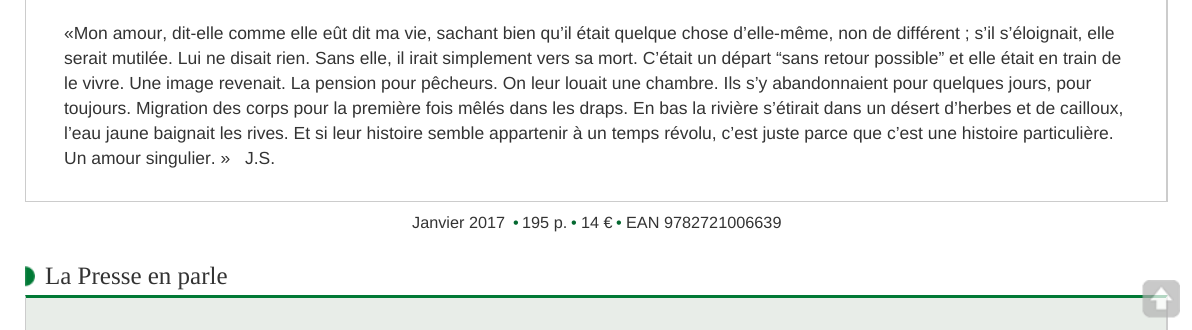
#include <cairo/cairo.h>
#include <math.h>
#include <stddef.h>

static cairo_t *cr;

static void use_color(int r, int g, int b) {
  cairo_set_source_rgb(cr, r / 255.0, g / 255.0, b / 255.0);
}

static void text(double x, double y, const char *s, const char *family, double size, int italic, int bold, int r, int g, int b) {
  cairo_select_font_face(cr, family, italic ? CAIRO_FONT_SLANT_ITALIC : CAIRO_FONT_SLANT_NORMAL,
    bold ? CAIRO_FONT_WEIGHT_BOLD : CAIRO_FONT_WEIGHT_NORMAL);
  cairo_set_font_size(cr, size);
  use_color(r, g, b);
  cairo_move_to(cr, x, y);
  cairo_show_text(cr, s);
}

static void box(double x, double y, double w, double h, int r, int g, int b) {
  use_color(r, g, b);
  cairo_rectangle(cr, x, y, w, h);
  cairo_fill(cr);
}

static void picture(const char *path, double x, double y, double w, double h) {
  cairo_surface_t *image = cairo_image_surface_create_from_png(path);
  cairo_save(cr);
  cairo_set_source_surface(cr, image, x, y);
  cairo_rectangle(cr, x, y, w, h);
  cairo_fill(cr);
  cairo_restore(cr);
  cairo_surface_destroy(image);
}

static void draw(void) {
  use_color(255, 255, 255);
  cairo_paint(cr);
  use_color(204, 204, 204);
  cairo_new_path(cr);
  cairo_move_to(cr, 1168, -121);
  cairo_line_to(cr, 1168, 202);
  cairo_line_to(cr, 1166, 201);
  cairo_line_to(cr, 1166, -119);
  cairo_close_path(cr);
  cairo_fill(cr);
  box(25, 201, 1143, 1, 204, 204, 204);
  cairo_new_path(cr);
  cairo_move_to(cr, 25, 202);
  cairo_line_to(cr, 25, -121);
  cairo_line_to(cr, 26, -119);
  cairo_line_to(cr, 26, 201);
  cairo_close_path(cr);
  cairo_fill(cr);
  picture("img_01.png", 25, 266, 10, 21);
  box(26, 298, 1140, 32, 232, 237, 232);
  use_color(0, 121, 53);
  cairo_new_path(cr);
  cairo_move_to(cr, 25, 295);
  cairo_line_to(cr, 1168, 295);
  cairo_line_to(cr, 1166, 298);
  cairo_line_to(cr, 26, 298);
  cairo_close_path(cr);
  cairo_fill(cr);
  use_color(204, 204, 204);
  cairo_new_path(cr);
  cairo_move_to(cr, 1168, 295);
  cairo_line_to(cr, 1168, 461);
  cairo_line_to(cr, 1166, 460);
  cairo_line_to(cr, 1166, 298);
  cairo_close_path(cr);
  cairo_fill(cr);
  cairo_new_path(cr);
  cairo_move_to(cr, 25, 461);
  cairo_line_to(cr, 25, 295);
  cairo_line_to(cr, 26, 298);
  cairo_line_to(cr, 26, 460);
  cairo_close_path(cr);
  cairo_fill(cr);
  picture("img_02.png", 1142, 280, 38, 38);
  text(64, 39, "«Mon amour, dit-elle comme elle eût dit ma vie, sachant bien qu’il était quelque chose d’elle-même, non de différent ; s’il s’éloignait, elle", "Liberation Sans", 17.5, 0, 0, 51, 51, 51);
  text(64, 64, "serait mutilée. Lui ne disait rien. Sans elle, il irait simplement vers sa mort. C’était un départ “sans retour possible” et elle était en train de", "Liberation Sans", 17.5, 0, 0, 51, 51, 51);
  text(64, 89, "le vivre. Une image revenait. La pension pour pêcheurs. On leur louait une chambre. Ils s’y abandonnaient pour quelques jours, pour", "Liberation Sans", 17.5, 0, 0, 51, 51, 51);
  text(64, 114, "toujours. Migration des corps pour la première fois mêlés dans les draps. En bas la rivière s’étirait dans un désert d’herbes et de cailloux,", "Liberation Sans", 17.5, 0, 0, 51, 51, 51);
  text(64, 139, "l’eau jaune baignait les rives. Et si leur histoire semble appartenir à un temps révolu, c’est juste parce que c’est une histoire particulière.", "Liberation Sans", 17.5, 0, 0, 51, 51, 51);
  text(64, 164, "Un amour singulier. »   J.S.", "Liberation Sans", 17.5, 0, 0, 51, 51, 51);
  text(412, 228, "Janvier 2017", "Liberation Sans", 16.25, 0, 0, 51, 51, 51);
  text(513, 228, "•", "Liberation Sans", 16.25, 0, 0, 4, 104, 48);
  text(522, 228, "195 p.", "Liberation Sans", 16.25, 0, 0, 51, 51, 51);
  text(571, 228, "•", "Liberation Sans", 16.25, 0, 0, 4, 104, 48);
  text(581, 228, "14 €", "Liberation Sans", 16.25, 0, 0, 51, 51, 51);
  text(616, 228, "•", "Liberation Sans", 16.25, 0, 0, 4, 104, 48);
  text(626, 228, "EAN 9782721006639", "Liberation Sans", 16.25, 0, 0, 51, 51, 51);
  text(45, 284, "La Presse en parle", "Liberation Serif", 25, 0, 0, 51, 51, 51);
}

int main(void) {
  cairo_surface_t *surface = cairo_image_surface_create(CAIRO_FORMAT_RGB24, 1192, 330);
  cr = cairo_create(surface);
  cairo_font_options_t *options = cairo_font_options_create();
  cairo_font_options_set_hint_metrics(options, CAIRO_HINT_METRICS_OFF);
  cairo_font_options_set_hint_style(options, CAIRO_HINT_STYLE_NONE);
  cairo_set_font_options(cr, options);
  cairo_set_miter_limit(cr, 4);
  draw();
  cairo_surface_write_to_png(surface, "out.png");
  cairo_font_options_destroy(options);
  cairo_destroy(cr);
  cairo_surface_destroy(surface);
  return 0;
}
